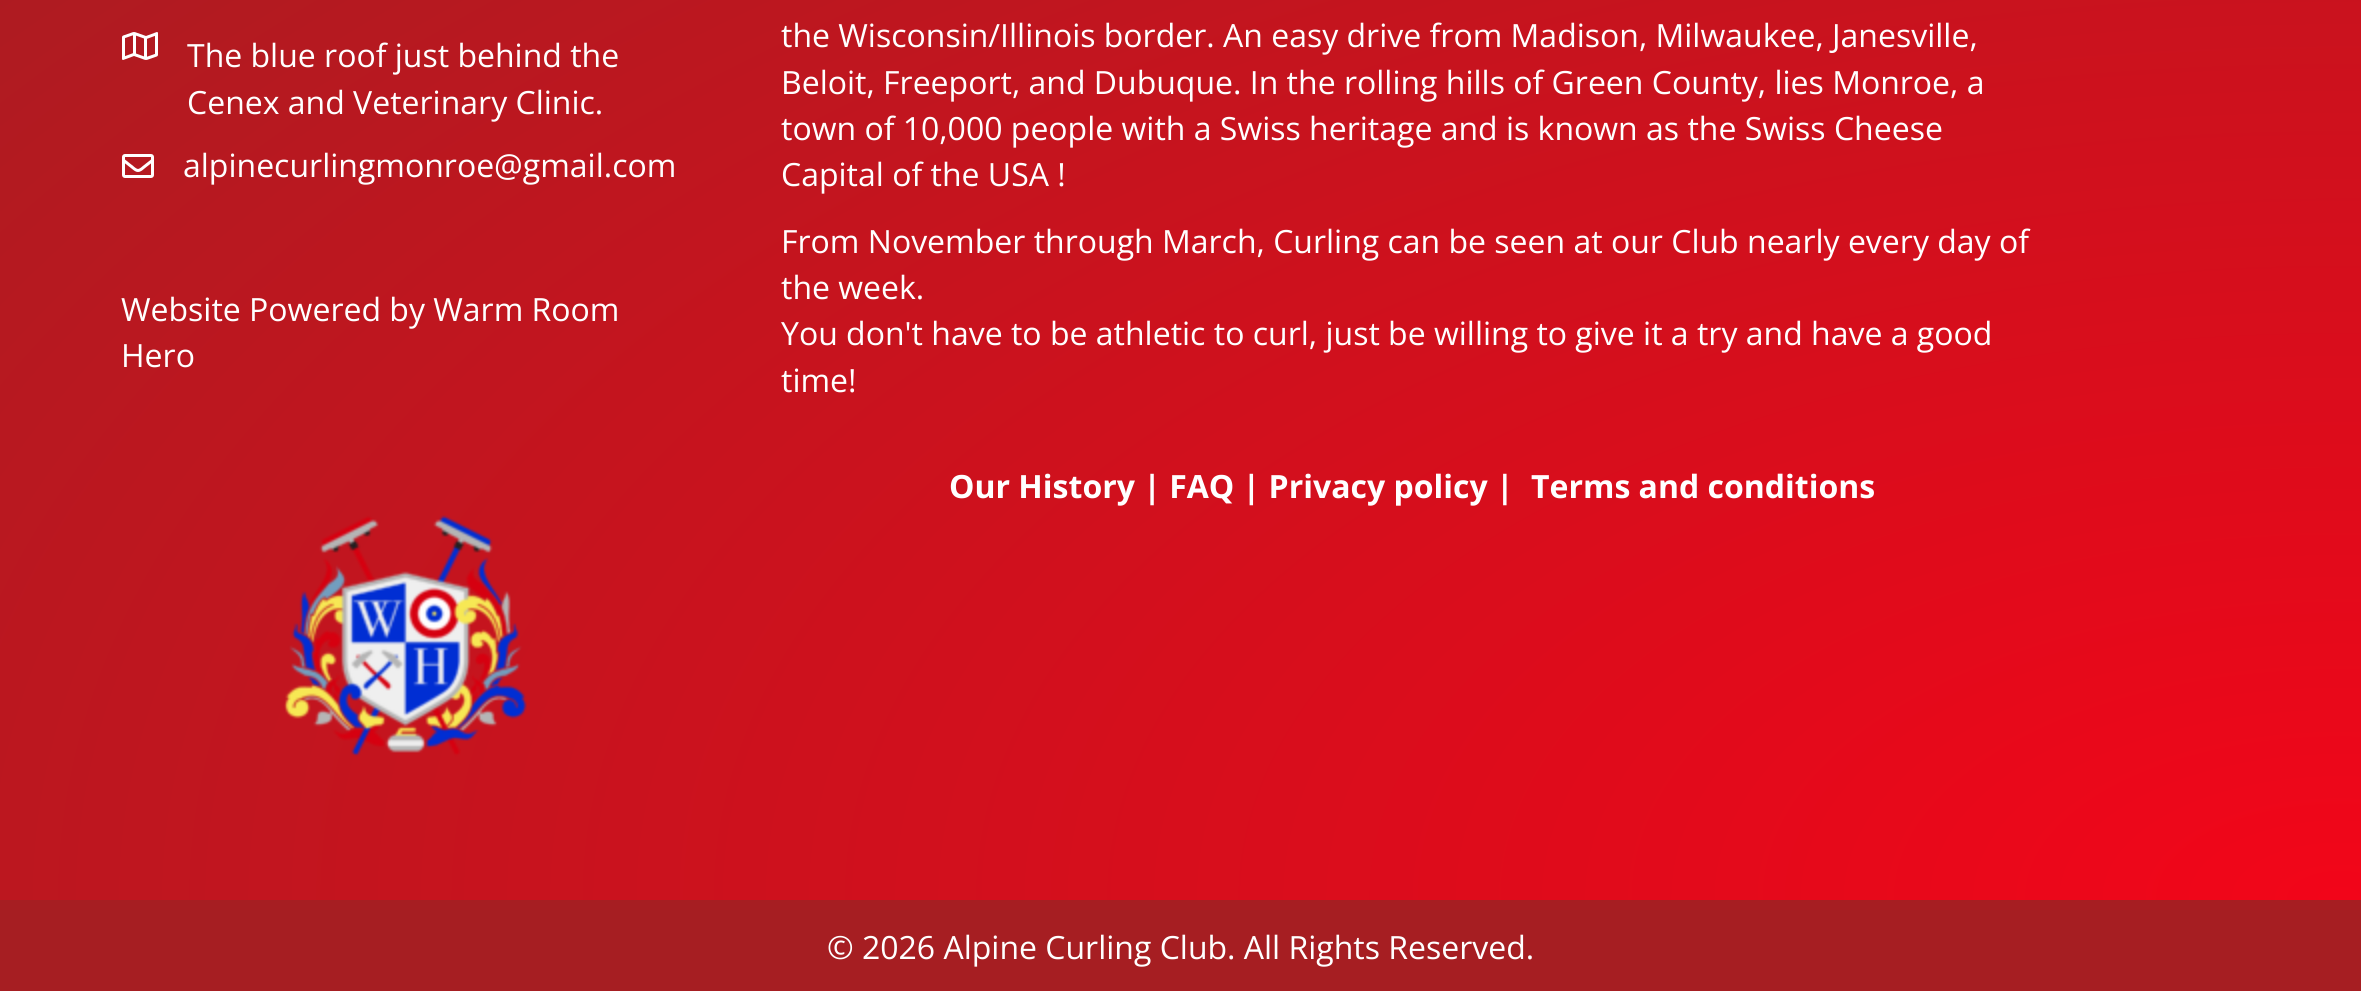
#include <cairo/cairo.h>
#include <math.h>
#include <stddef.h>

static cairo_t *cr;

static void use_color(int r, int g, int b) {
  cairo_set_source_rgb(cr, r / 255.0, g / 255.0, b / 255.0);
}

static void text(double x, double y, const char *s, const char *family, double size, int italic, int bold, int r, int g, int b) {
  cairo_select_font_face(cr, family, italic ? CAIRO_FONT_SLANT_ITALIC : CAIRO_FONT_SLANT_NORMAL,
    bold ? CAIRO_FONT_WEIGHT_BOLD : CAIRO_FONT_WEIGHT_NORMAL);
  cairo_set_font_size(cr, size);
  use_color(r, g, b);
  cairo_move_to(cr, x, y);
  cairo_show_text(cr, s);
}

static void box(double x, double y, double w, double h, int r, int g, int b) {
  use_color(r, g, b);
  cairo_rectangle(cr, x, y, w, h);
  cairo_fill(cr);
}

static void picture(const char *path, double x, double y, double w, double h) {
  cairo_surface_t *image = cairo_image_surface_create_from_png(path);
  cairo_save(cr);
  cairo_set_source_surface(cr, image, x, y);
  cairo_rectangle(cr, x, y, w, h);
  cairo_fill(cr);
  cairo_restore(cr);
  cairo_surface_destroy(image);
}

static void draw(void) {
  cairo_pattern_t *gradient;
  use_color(255, 255, 255);
  cairo_paint(cr);
  gradient = cairo_pattern_create_radial(0, 0, 0, 0, 0, 1);
  cairo_pattern_set_matrix(gradient, &(cairo_matrix_t){1.0 / 3340, 0, 0, 1.0 / 1689, -1.0 * 2362 / 3340, -1.0 * 900 / 1689});
  cairo_pattern_add_color_stop_rgba(gradient, 0, 0.949, 0.02, 0.098, 1);
  cairo_pattern_add_color_stop_rgba(gradient, 1, 0.651, 0.118, 0.133, 1);
  cairo_set_source(cr, gradient);
  cairo_pattern_destroy(gradient);
  cairo_rectangle(cr, 0, 0, 2361, 900);
  cairo_fill(cr);
  picture("img_01.png", 122, 32, 36, 28);
  picture("img_02.png", 122, 154, 32, 24);
  picture("img_03.png", 284, 515, 243, 242);
  box(0, 900, 2361, 91, 166, 30, 34);
  text(187, 67, "The blue roof just behind the", "Open Sans", 32, 0, 0, 255, 255, 255);
  text(187, 114, "Cenex and Veterinary Clinic.", "Open Sans", 32, 0, 0, 255, 255, 255);
  text(183, 177, "alpinecurlingmonroe@gmail.com", "Open Sans", 32, 0, 0, 255, 255, 255);
  text(121, 321, "Website Powered by Warm Room", "Open Sans", 32, 0, 0, 255, 255, 255);
  text(121, 367, "Hero", "Open Sans", 32, 0, 0, 255, 255, 255);
  text(781, 47, "the Wisconsin/Illinois border. An easy drive from Madison, Milwaukee, Janesville,", "Open Sans", 32, 0, 0, 255, 255, 255);
  text(781, 94, "Beloit, Freeport, and Dubuque. In the rolling hills of Green County, lies Monroe, a", "Open Sans", 32, 0, 0, 255, 255, 255);
  text(781, 140, "town of 10,000 people with a Swiss heritage and is known as the Swiss Cheese", "Open Sans", 32, 0, 0, 255, 255, 255);
  text(781, 186, "Capital of the USA !", "Open Sans", 32, 0, 0, 255, 255, 255);
  text(781, 253, "From November through March, Curling can be seen at our Club nearly every day of", "Open Sans", 32, 0, 0, 255, 255, 255);
  text(781, 299, "the week.", "Open Sans", 32, 0, 0, 255, 255, 255);
  text(781, 345, "You don't have to be athletic to curl, just be willing to give it a try and have a good", "Open Sans", 32, 0, 0, 255, 255, 255);
  text(781, 392, "time!", "Open Sans", 32, 0, 0, 255, 255, 255);
  text(949, 498, "Our History | FAQ | Privacy policy |", "Open Sans", 32, 0, 1, 255, 255, 255);
  text(1531, 498, "Terms and conditions", "Open Sans", 32, 0, 1, 255, 255, 255);
  text(827, 959, "© 2026 Alpine Curling Club. All Rights Reserved.", "Open Sans", 32, 0, 0, 255, 255, 255);
}

int main(void) {
  cairo_surface_t *surface = cairo_image_surface_create(CAIRO_FORMAT_RGB24, 2361, 991);
  cr = cairo_create(surface);
  cairo_font_options_t *options = cairo_font_options_create();
  cairo_font_options_set_hint_metrics(options, CAIRO_HINT_METRICS_OFF);
  cairo_font_options_set_hint_style(options, CAIRO_HINT_STYLE_NONE);
  cairo_set_font_options(cr, options);
  cairo_set_miter_limit(cr, 4);
  draw();
  cairo_surface_write_to_png(surface, "out.png");
  cairo_font_options_destroy(options);
  cairo_destroy(cr);
  cairo_surface_destroy(surface);
  return 0;
}
